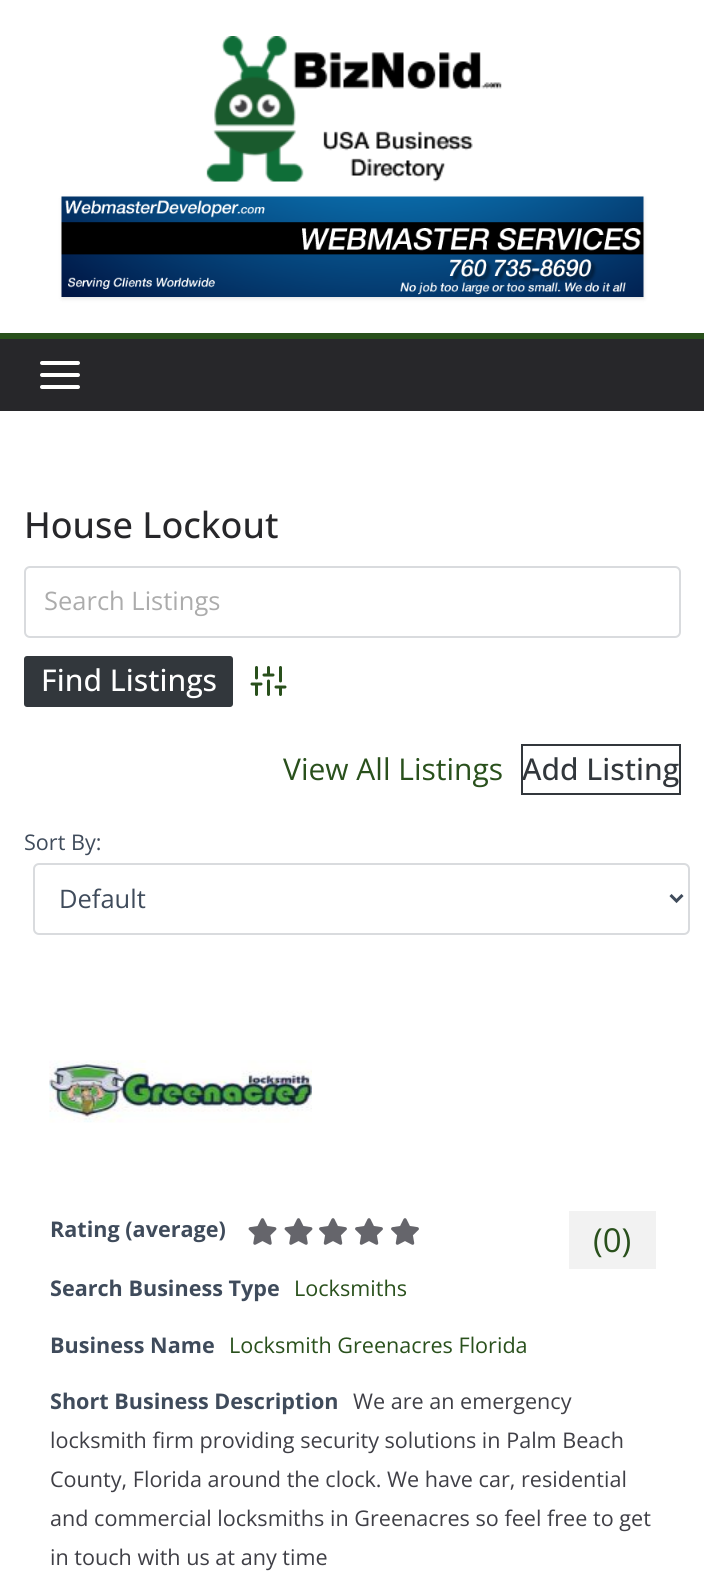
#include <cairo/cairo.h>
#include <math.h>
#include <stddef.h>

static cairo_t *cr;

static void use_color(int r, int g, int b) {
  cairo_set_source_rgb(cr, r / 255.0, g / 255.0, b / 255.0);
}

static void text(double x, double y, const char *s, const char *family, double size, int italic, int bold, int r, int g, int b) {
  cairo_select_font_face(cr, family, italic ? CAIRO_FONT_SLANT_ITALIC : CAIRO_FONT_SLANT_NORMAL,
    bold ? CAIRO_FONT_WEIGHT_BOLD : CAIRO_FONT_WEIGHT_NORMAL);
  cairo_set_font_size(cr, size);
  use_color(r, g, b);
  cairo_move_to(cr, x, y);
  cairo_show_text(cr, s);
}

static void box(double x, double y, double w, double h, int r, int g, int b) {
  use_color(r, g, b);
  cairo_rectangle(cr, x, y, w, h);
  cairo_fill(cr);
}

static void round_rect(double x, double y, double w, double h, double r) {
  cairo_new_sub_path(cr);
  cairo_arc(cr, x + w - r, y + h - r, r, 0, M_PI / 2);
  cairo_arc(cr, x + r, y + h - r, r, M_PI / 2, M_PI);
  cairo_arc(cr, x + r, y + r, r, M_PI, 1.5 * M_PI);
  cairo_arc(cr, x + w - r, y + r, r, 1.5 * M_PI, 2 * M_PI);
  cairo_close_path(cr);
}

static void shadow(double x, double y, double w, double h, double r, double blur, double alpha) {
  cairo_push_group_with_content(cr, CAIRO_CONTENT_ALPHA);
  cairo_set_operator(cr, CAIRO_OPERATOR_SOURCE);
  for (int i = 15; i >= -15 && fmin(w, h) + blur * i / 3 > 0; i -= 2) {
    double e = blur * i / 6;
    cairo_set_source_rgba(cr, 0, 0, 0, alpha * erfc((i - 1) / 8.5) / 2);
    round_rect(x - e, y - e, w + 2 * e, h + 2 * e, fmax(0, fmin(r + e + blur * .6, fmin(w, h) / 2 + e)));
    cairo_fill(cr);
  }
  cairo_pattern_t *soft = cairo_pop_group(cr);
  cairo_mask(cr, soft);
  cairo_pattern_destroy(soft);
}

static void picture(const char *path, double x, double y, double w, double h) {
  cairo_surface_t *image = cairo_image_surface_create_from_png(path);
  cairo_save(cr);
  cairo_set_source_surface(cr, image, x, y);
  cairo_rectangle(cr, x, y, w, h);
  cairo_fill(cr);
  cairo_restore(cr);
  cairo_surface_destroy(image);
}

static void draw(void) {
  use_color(255, 255, 255);
  cairo_paint(cr);
  picture("img_01.png", 206, 36, 296, 146);
  use_color(0, 0, 0);
  shadow(62, 198, 582, 101, 0, 2, 0.1);
  picture("img_02.png", 61, 196, 583, 101);
  box(0, 339, 704, 72, 39, 39, 42);
  box(0, 333, 704, 6, 41, 80, 28);
  picture("img_03.png", 40, 361, 40, 28);
  round_rect(25, 567, 655, 70, 5);
  use_color(217, 219, 222);
  cairo_stroke(cr);
  use_color(50, 55, 60);
  round_rect(25, 657, 207, 49, 2);
  cairo_fill_preserve(cr);
  cairo_stroke(cr);
  cairo_new_path(cr);
  cairo_move_to(cr, 256.5, 694.5);
  cairo_line_to(cr, 256.5, 684);
  cairo_move_to(cr, 256.5, 678);
  cairo_line_to(cr, 256.5, 667.5);
  cairo_move_to(cr, 268.5, 694.5);
  cairo_line_to(cr, 268.5, 681);
  cairo_move_to(cr, 268.5, 675);
  cairo_line_to(cr, 268.5, 667.5);
  cairo_move_to(cr, 280.5, 694.5);
  cairo_line_to(cr, 280.5, 687);
  cairo_move_to(cr, 280.5, 681);
  cairo_line_to(cr, 280.5, 667.5);
  cairo_move_to(cr, 252, 684);
  cairo_line_to(cr, 261, 684);
  cairo_move_to(cr, 264, 675);
  cairo_line_to(cr, 273, 675);
  cairo_move_to(cr, 276, 687);
  cairo_line_to(cr, 285, 687);
  use_color(41, 80, 28);
  cairo_set_line_width(cr, 3);
  cairo_set_line_cap(cr, CAIRO_LINE_CAP_ROUND);
  cairo_set_line_join(cr, CAIRO_LINE_JOIN_ROUND);
  cairo_stroke(cr);
  cairo_rectangle(cr, 522, 745, 158, 49);
  use_color(50, 55, 60);
  cairo_set_line_width(cr, 2);
  cairo_set_line_cap(cr, CAIRO_LINE_CAP_BUTT);
  cairo_set_line_join(cr, CAIRO_LINE_JOIN_MITER);
  cairo_stroke(cr);
  round_rect(34, 864, 655, 70, 5);
  use_color(217, 219, 222);
  cairo_stroke(cr);
  cairo_new_path(cr);
  cairo_move_to(cr, 670.5, 895);
  cairo_line_to(cr, 676.5, 901);
  cairo_line_to(cr, 682.5, 895);
  use_color(63, 75, 91);
  cairo_set_line_width(cr, 3);
  cairo_stroke(cr);
  picture("img_04.png", 49, 1060, 263, 63);
  picture("img_05.png", 248, 1218, 29, 27);
  picture("img_05.png", 284, 1218, 29, 27);
  picture("img_06.png", 319, 1218, 28, 27);
  picture("img_06.png", 355, 1218, 28, 27);
  picture("img_06.png", 391, 1218, 28, 27);
  box(569, 1211, 87, 58, 242, 242, 242);
  text(24, 538, "House Lockout", "Open Sans Medium", 36, 0, 0, 39, 39, 42);
  text(44, 610, "Search Listings", "Open Sans", 25.5, 0, 0, 172, 172, 172);
  text(41, 691, "Find Listings", "Open Sans Medium", 30, 0, 0, 255, 255, 255);
  text(283, 780, "View All Listings", "Open Sans", 30, 0, 0, 41, 80, 28);
  text(522, 780, "Add Listing", "Open Sans Medium", 30, 0, 0, 50, 55, 60);
  text(24, 850, "Sort By:", "Open Sans", 21.6, 0, 0, 63, 75, 91);
  text(59, 908, "Default", "Open Sans", 25.5, 0, 0, 63, 75, 91);
  text(50, 1237, "Rating (average)", "Open Sans", 21.6, 0, 1, 63, 75, 91);
  text(593, 1252, "(0)", "Open Sans", 33, 0, 0, 41, 80, 28);
  text(50, 1296, "Search Business Type", "Open Sans", 21.6, 0, 1, 63, 75, 91);
  text(294, 1296, "Locksmiths", "Open Sans", 21.6, 0, 0, 41, 80, 28);
  text(50, 1353, "Business Name", "Open Sans", 21.6, 0, 1, 63, 75, 91);
  text(229, 1353, "Locksmith Greenacres Florida", "Open Sans", 21.6, 0, 0, 41, 80, 28);
  text(50, 1409, "Short Business Description", "Open Sans", 21.6, 0, 1, 63, 75, 91);
  text(353, 1409, "We are an emergency", "Open Sans", 21.6, 0, 0, 63, 63, 70);
  text(50, 1448, "locksmith firm providing security solutions in Palm Beach", "Open Sans", 21.6, 0, 0, 63, 63, 70);
  text(50, 1487, "County, Florida around the clock. We have car, residential", "Open Sans", 21.6, 0, 0, 63, 63, 70);
  text(50, 1526, "and commercial locksmiths in Greenacres so feel free to get", "Open Sans", 21.6, 0, 0, 63, 63, 70);
  text(50, 1565, "in touch with us at any time", "Open Sans", 21.6, 0, 0, 63, 63, 70);
}

int main(void) {
  cairo_surface_t *surface = cairo_image_surface_create(CAIRO_FORMAT_RGB24, 704, 1590);
  cr = cairo_create(surface);
  cairo_font_options_t *options = cairo_font_options_create();
  cairo_font_options_set_hint_metrics(options, CAIRO_HINT_METRICS_OFF);
  cairo_font_options_set_hint_style(options, CAIRO_HINT_STYLE_NONE);
  cairo_set_font_options(cr, options);
  cairo_set_miter_limit(cr, 4);
  draw();
  cairo_surface_write_to_png(surface, "out.png");
  cairo_font_options_destroy(options);
  cairo_destroy(cr);
  cairo_surface_destroy(surface);
  return 0;
}
